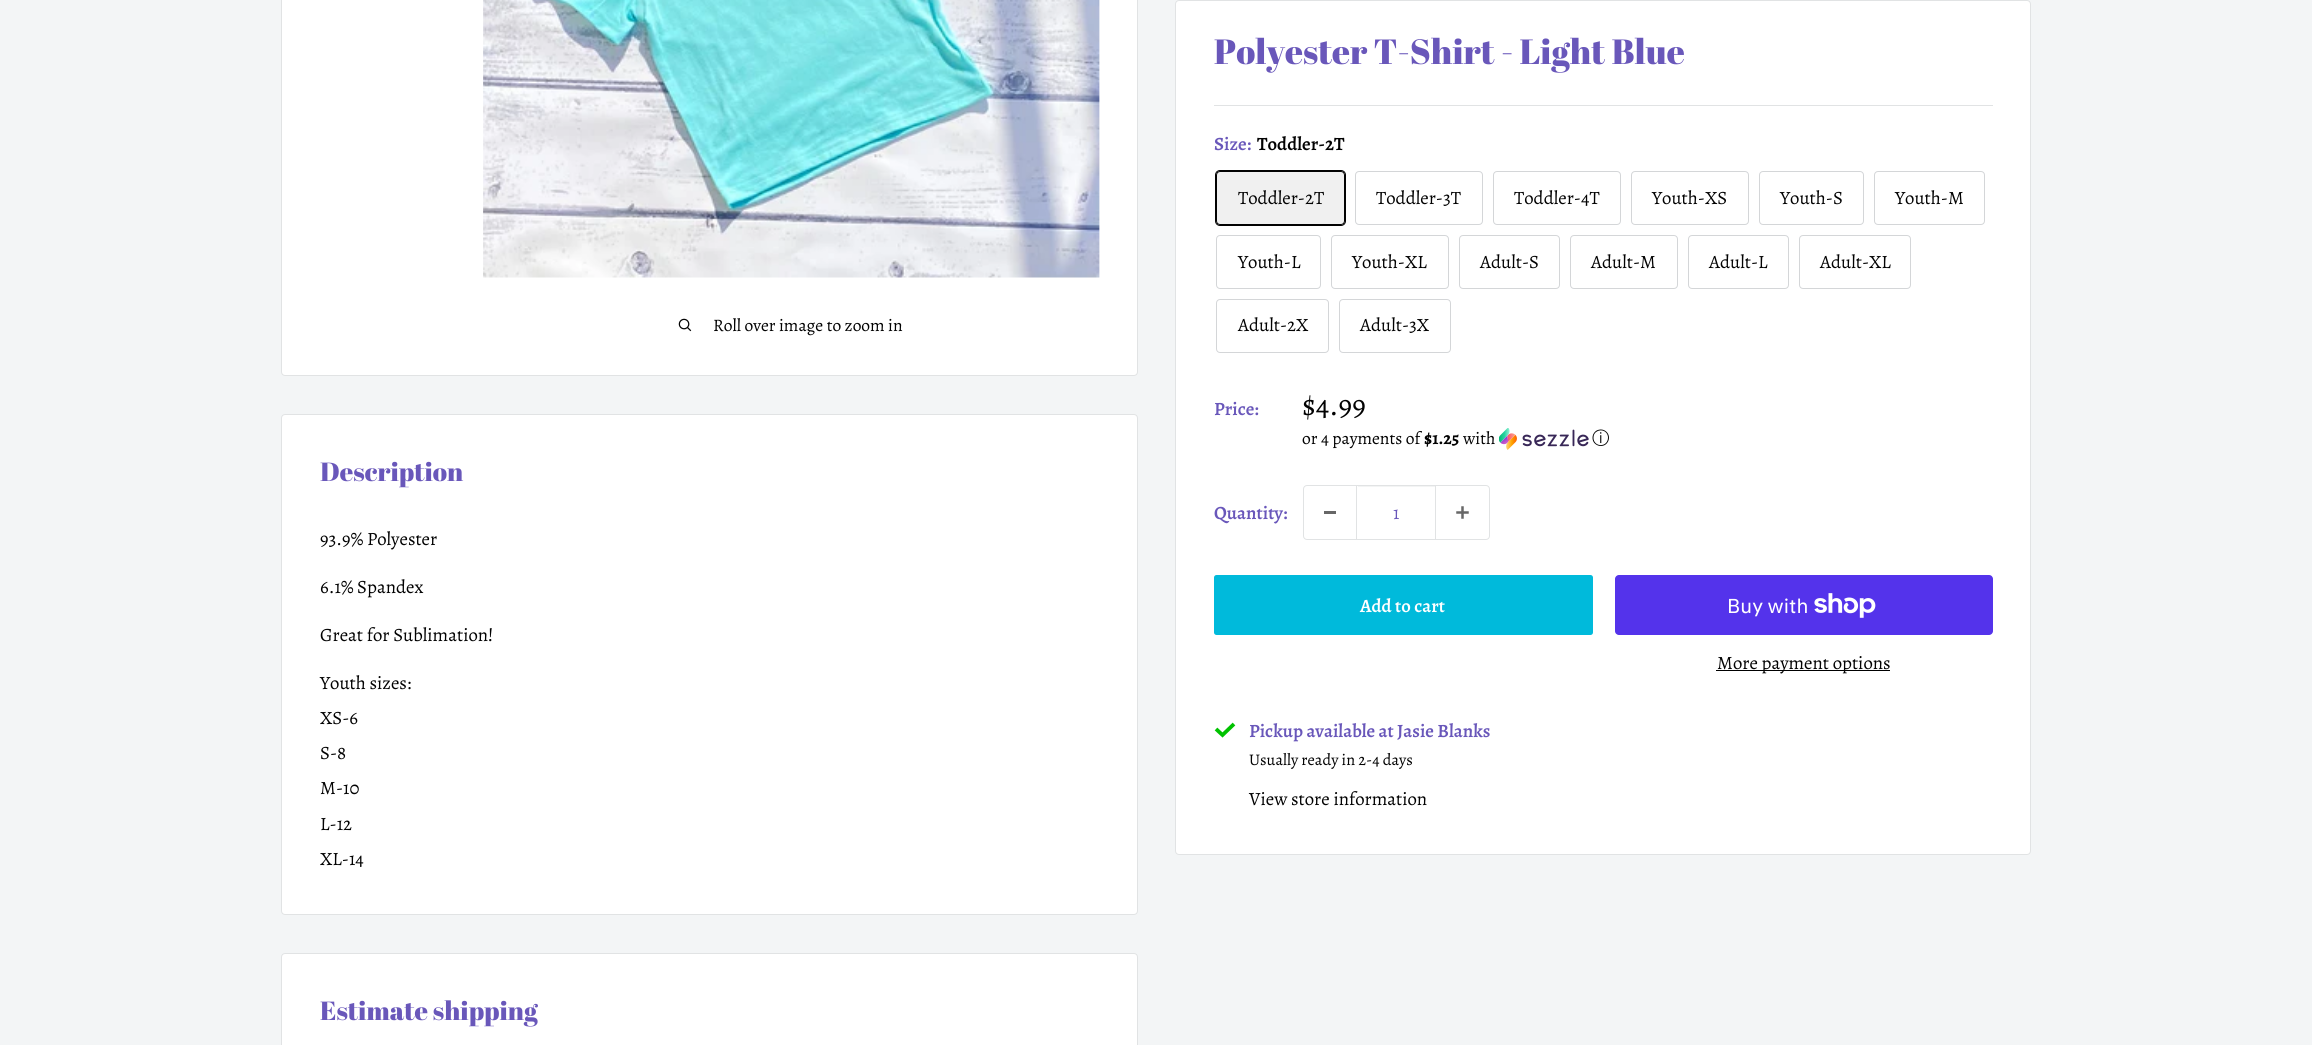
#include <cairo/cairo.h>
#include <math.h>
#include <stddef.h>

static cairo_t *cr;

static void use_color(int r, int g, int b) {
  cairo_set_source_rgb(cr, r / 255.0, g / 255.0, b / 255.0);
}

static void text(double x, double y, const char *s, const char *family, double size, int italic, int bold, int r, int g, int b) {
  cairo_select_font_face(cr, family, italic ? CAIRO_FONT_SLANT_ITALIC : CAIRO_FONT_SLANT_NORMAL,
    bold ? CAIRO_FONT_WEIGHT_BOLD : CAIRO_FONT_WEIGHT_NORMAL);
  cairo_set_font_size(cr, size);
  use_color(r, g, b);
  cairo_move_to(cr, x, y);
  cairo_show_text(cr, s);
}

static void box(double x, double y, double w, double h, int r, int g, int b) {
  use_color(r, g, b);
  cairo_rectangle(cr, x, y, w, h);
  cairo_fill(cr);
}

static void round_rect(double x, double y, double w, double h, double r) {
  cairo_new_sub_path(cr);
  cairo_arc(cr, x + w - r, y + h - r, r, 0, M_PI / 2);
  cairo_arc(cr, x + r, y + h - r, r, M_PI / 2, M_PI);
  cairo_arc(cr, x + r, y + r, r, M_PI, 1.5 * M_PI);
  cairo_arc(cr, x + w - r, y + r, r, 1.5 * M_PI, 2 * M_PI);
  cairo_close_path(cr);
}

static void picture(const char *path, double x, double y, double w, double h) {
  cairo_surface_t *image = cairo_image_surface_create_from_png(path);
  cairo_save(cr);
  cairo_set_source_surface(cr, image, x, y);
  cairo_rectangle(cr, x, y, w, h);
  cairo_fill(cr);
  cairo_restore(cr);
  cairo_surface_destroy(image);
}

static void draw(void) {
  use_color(243, 245, 246);
  cairo_paint(cr);
  use_color(255, 255, 255);
  round_rect(281.5, -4.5, 856, 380, 3.5);
  cairo_fill_preserve(cr);
  use_color(225, 227, 228);
  cairo_set_line_width(cr, 1);
  cairo_stroke(cr);
  picture("img_01.png", 483, 0, 617, 278);
  picture("img_02.png", 678, 318, 14, 14);
  use_color(255, 255, 255);
  round_rect(1175.5, 0.5, 855, 854, 3.5);
  cairo_fill_preserve(cr);
  use_color(225, 227, 228);
  cairo_stroke(cr);
  box(1214, 105, 779, 1, 225, 227, 228);
  round_rect(1215.5, 170.5, 130, 55, 4.5);
  use_color(2, 2, 2);
  cairo_stroke(cr);
  cairo_set_source_rgba(cr, 0.008, 0.008, 0.008, 0.06);
  cairo_rectangle(cr, 1216, 171, 129, 54);
  cairo_fill(cr);
  round_rect(1216.5, 171.5, 128, 53, 3.5);
  use_color(2, 2, 2);
  cairo_stroke(cr);
  round_rect(1355.5, 171.5, 127, 53, 3.5);
  use_color(212, 214, 216);
  cairo_stroke(cr);
  round_rect(1493.5, 171.5, 127, 53, 3.5);
  cairo_stroke(cr);
  round_rect(1631.5, 171.5, 117, 53, 3.5);
  cairo_stroke(cr);
  round_rect(1759.5, 171.5, 104, 53, 3.5);
  cairo_stroke(cr);
  round_rect(1874.5, 171.5, 110, 53, 3.5);
  cairo_stroke(cr);
  round_rect(1216.5, 235.5, 104, 53, 3.5);
  cairo_stroke(cr);
  round_rect(1331.5, 235.5, 117, 53, 3.5);
  cairo_stroke(cr);
  round_rect(1459.5, 235.5, 100, 53, 3.5);
  cairo_stroke(cr);
  round_rect(1570.5, 235.5, 107, 53, 3.5);
  cairo_stroke(cr);
  round_rect(1688.5, 235.5, 100, 53, 3.5);
  cairo_stroke(cr);
  round_rect(1799.5, 235.5, 111, 53, 3.5);
  cairo_stroke(cr);
  round_rect(1216.5, 299.5, 112, 53, 3.5);
  cairo_stroke(cr);
  round_rect(1339.5, 299.5, 111, 53, 3.5);
  cairo_stroke(cr);
  picture("img_03.png", 1499, 428, 90, 22);
  round_rect(1303.5, 485.5, 186, 54, 3.5);
  use_color(225, 227, 228);
  cairo_stroke(cr);
  box(1324, 511, 12, 3, 103, 103, 103);
  box(1358, 486, 77, 1, 243, 244, 244);
  box(1435, 486, 1, 53, 225, 227, 228);
  box(1356, 486, 1, 53, 225, 227, 228);
  picture("img_04.png", 1456, 506, 13, 13);
  use_color(0, 186, 219);
  round_rect(1214, 575, 379, 60, 2.5);
  cairo_fill(cr);
  use_color(84, 51, 235);
  round_rect(1615, 575, 378, 60, 4);
  cairo_fill(cr);
  picture("img_05.png", 1814, 593, 62, 25);
  box(1716, 670, 174, 1, 0, 0, 0);
  cairo_new_path(cr);
  cairo_move_to(cr, 1216, 729);
  cairo_line_to(cr, 1222.5, 735);
  cairo_line_to(cr, 1234, 724);
  use_color(0, 194, 0);
  cairo_set_line_width(cr, 3.8);
  cairo_stroke(cr);
  use_color(255, 255, 255);
  round_rect(281.5, 414.5, 856, 500, 3.5);
  cairo_fill_preserve(cr);
  use_color(225, 227, 228);
  cairo_set_line_width(cr, 1);
  cairo_stroke(cr);
  use_color(255, 255, 255);
  round_rect(281.5, 953.5, 856, 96, 3.5);
  cairo_fill_preserve(cr);
  use_color(225, 227, 228);
  cairo_stroke(cr);
  text(713, 331, "Roll over image to zoom in", "Alegreya", 17.5, 0, 0, 2, 2, 2);
  text(1214, 64, "Polyester T-Shirt - Light Blue", "Abril Fatface", 35, 0, 0, 105, 87, 186);
  text(1214, 150, "Size:", "Alegreya SemiBold", 18.75, 0, 0, 105, 87, 186);
  text(1257, 150, "Toddler-2T", "Alegreya SemiBold", 18.75, 0, 0, 2, 2, 2);
  text(1238, 204, "Toddler-2T", "Alegreya", 18.75, 0, 0, 2, 2, 2);
  text(1376, 204, "Toddler-3T", "Alegreya", 18.75, 0, 0, 2, 2, 2);
  text(1514, 204, "Toddler-4T", "Alegreya", 18.75, 0, 0, 2, 2, 2);
  text(1652, 204, "Youth-XS", "Alegreya", 18.75, 0, 0, 2, 2, 2);
  text(1780, 204, "Youth-S", "Alegreya", 18.75, 0, 0, 2, 2, 2);
  text(1895, 204, "Youth-M", "Alegreya", 18.75, 0, 0, 2, 2, 2);
  text(1238, 268, "Youth-L", "Alegreya", 18.75, 0, 0, 2, 2, 2);
  text(1352, 268, "Youth-XL", "Alegreya", 18.75, 0, 0, 2, 2, 2);
  text(1480, 268, "Adult-S", "Alegreya", 18.75, 0, 0, 2, 2, 2);
  text(1591, 268, "Adult-M", "Alegreya", 18.75, 0, 0, 2, 2, 2);
  text(1709, 268, "Adult-L", "Alegreya", 18.75, 0, 0, 2, 2, 2);
  text(1820, 268, "Adult-XL", "Alegreya", 18.75, 0, 0, 2, 2, 2);
  text(1238, 331, "Adult-2X", "Alegreya", 18.75, 0, 0, 2, 2, 2);
  text(1360, 331, "Adult-3X", "Alegreya", 18.75, 0, 0, 2, 2, 2);
  text(1214, 415, "Price:", "Alegreya SemiBold", 18.75, 0, 0, 105, 87, 186);
  text(1302, 415, "$4.99", "Alegreya", 30, 0, 0, 2, 2, 2);
  text(1302, 444, "or 4 payments of", "Alegreya", 17.5, 0, 0, 2, 2, 2);
  text(1424, 444, "$1.25", "Alegreya", 17.5, 0, 1, 2, 2, 2);
  text(1463, 444, "with", "Alegreya", 17.5, 0, 0, 2, 2, 2);
  text(1592, 444, "ⓘ", "WenQuanYi Zen Hei Medium", 17.5, 0, 0, 2, 2, 2);
  text(1214, 519, "Quantity:", "Alegreya SemiBold", 18.75, 0, 0, 105, 87, 186);
  text(1393, 519, "1", "Alegreya", 18.75, 0, 0, 105, 87, 186);
  text(1360, 612, "Add to cart", "Alegreya SemiBold", 18.75, 0, 0, 255, 255, 255);
  text(1727, 613, "Buy with", "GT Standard", 20, 0, 0, 255, 255, 255);
  text(1717, 669, "More payment options", "Alegreya", 18.75, 0, 0, 2, 2, 2);
  text(1249, 737, "Pickup available at Jasie Blanks", "Alegreya SemiBold", 18.75, 0, 0, 105, 87, 186);
  text(1249, 765, "Usually ready in 2-4 days", "Alegreya", 16.25, 0, 0, 2, 2, 2);
  text(1249, 805, "View store information", "Alegreya", 18.75, 0, 0, 2, 2, 2);
  text(320, 481, "Description", "Abril Fatface", 26.25, 0, 0, 105, 87, 186);
  text(320, 545, "93.9% Polyester", "Alegreya", 18.75, 0, 0, 2, 2, 2);
  text(320, 593, "6.1% Spandex", "Alegreya", 18.75, 0, 0, 2, 2, 2);
  text(320, 641, "Great for Sublimation!", "Alegreya", 18.75, 0, 0, 2, 2, 2);
  text(320, 689, "Youth sizes:", "Alegreya", 18.75, 0, 0, 2, 2, 2);
  text(320, 724, "XS-6", "Alegreya", 18.75, 0, 0, 2, 2, 2);
  text(320, 759, "S-8", "Alegreya", 18.75, 0, 0, 2, 2, 2);
  text(320, 794, "M-10", "Alegreya", 18.75, 0, 0, 2, 2, 2);
  text(320, 830, "L-12", "Alegreya", 18.75, 0, 0, 2, 2, 2);
  text(320, 865, "XL-14", "Alegreya", 18.75, 0, 0, 2, 2, 2);
  text(320, 1020, "Estimate shipping", "Abril Fatface", 26.25, 0, 0, 105, 87, 186);
}

int main(void) {
  cairo_surface_t *surface = cairo_image_surface_create(CAIRO_FORMAT_RGB24, 2312, 1045);
  cr = cairo_create(surface);
  cairo_font_options_t *options = cairo_font_options_create();
  cairo_font_options_set_hint_metrics(options, CAIRO_HINT_METRICS_OFF);
  cairo_font_options_set_hint_style(options, CAIRO_HINT_STYLE_NONE);
  cairo_set_font_options(cr, options);
  cairo_set_miter_limit(cr, 4);
  draw();
  cairo_surface_write_to_png(surface, "out.png");
  cairo_font_options_destroy(options);
  cairo_destroy(cr);
  cairo_surface_destroy(surface);
  return 0;
}
